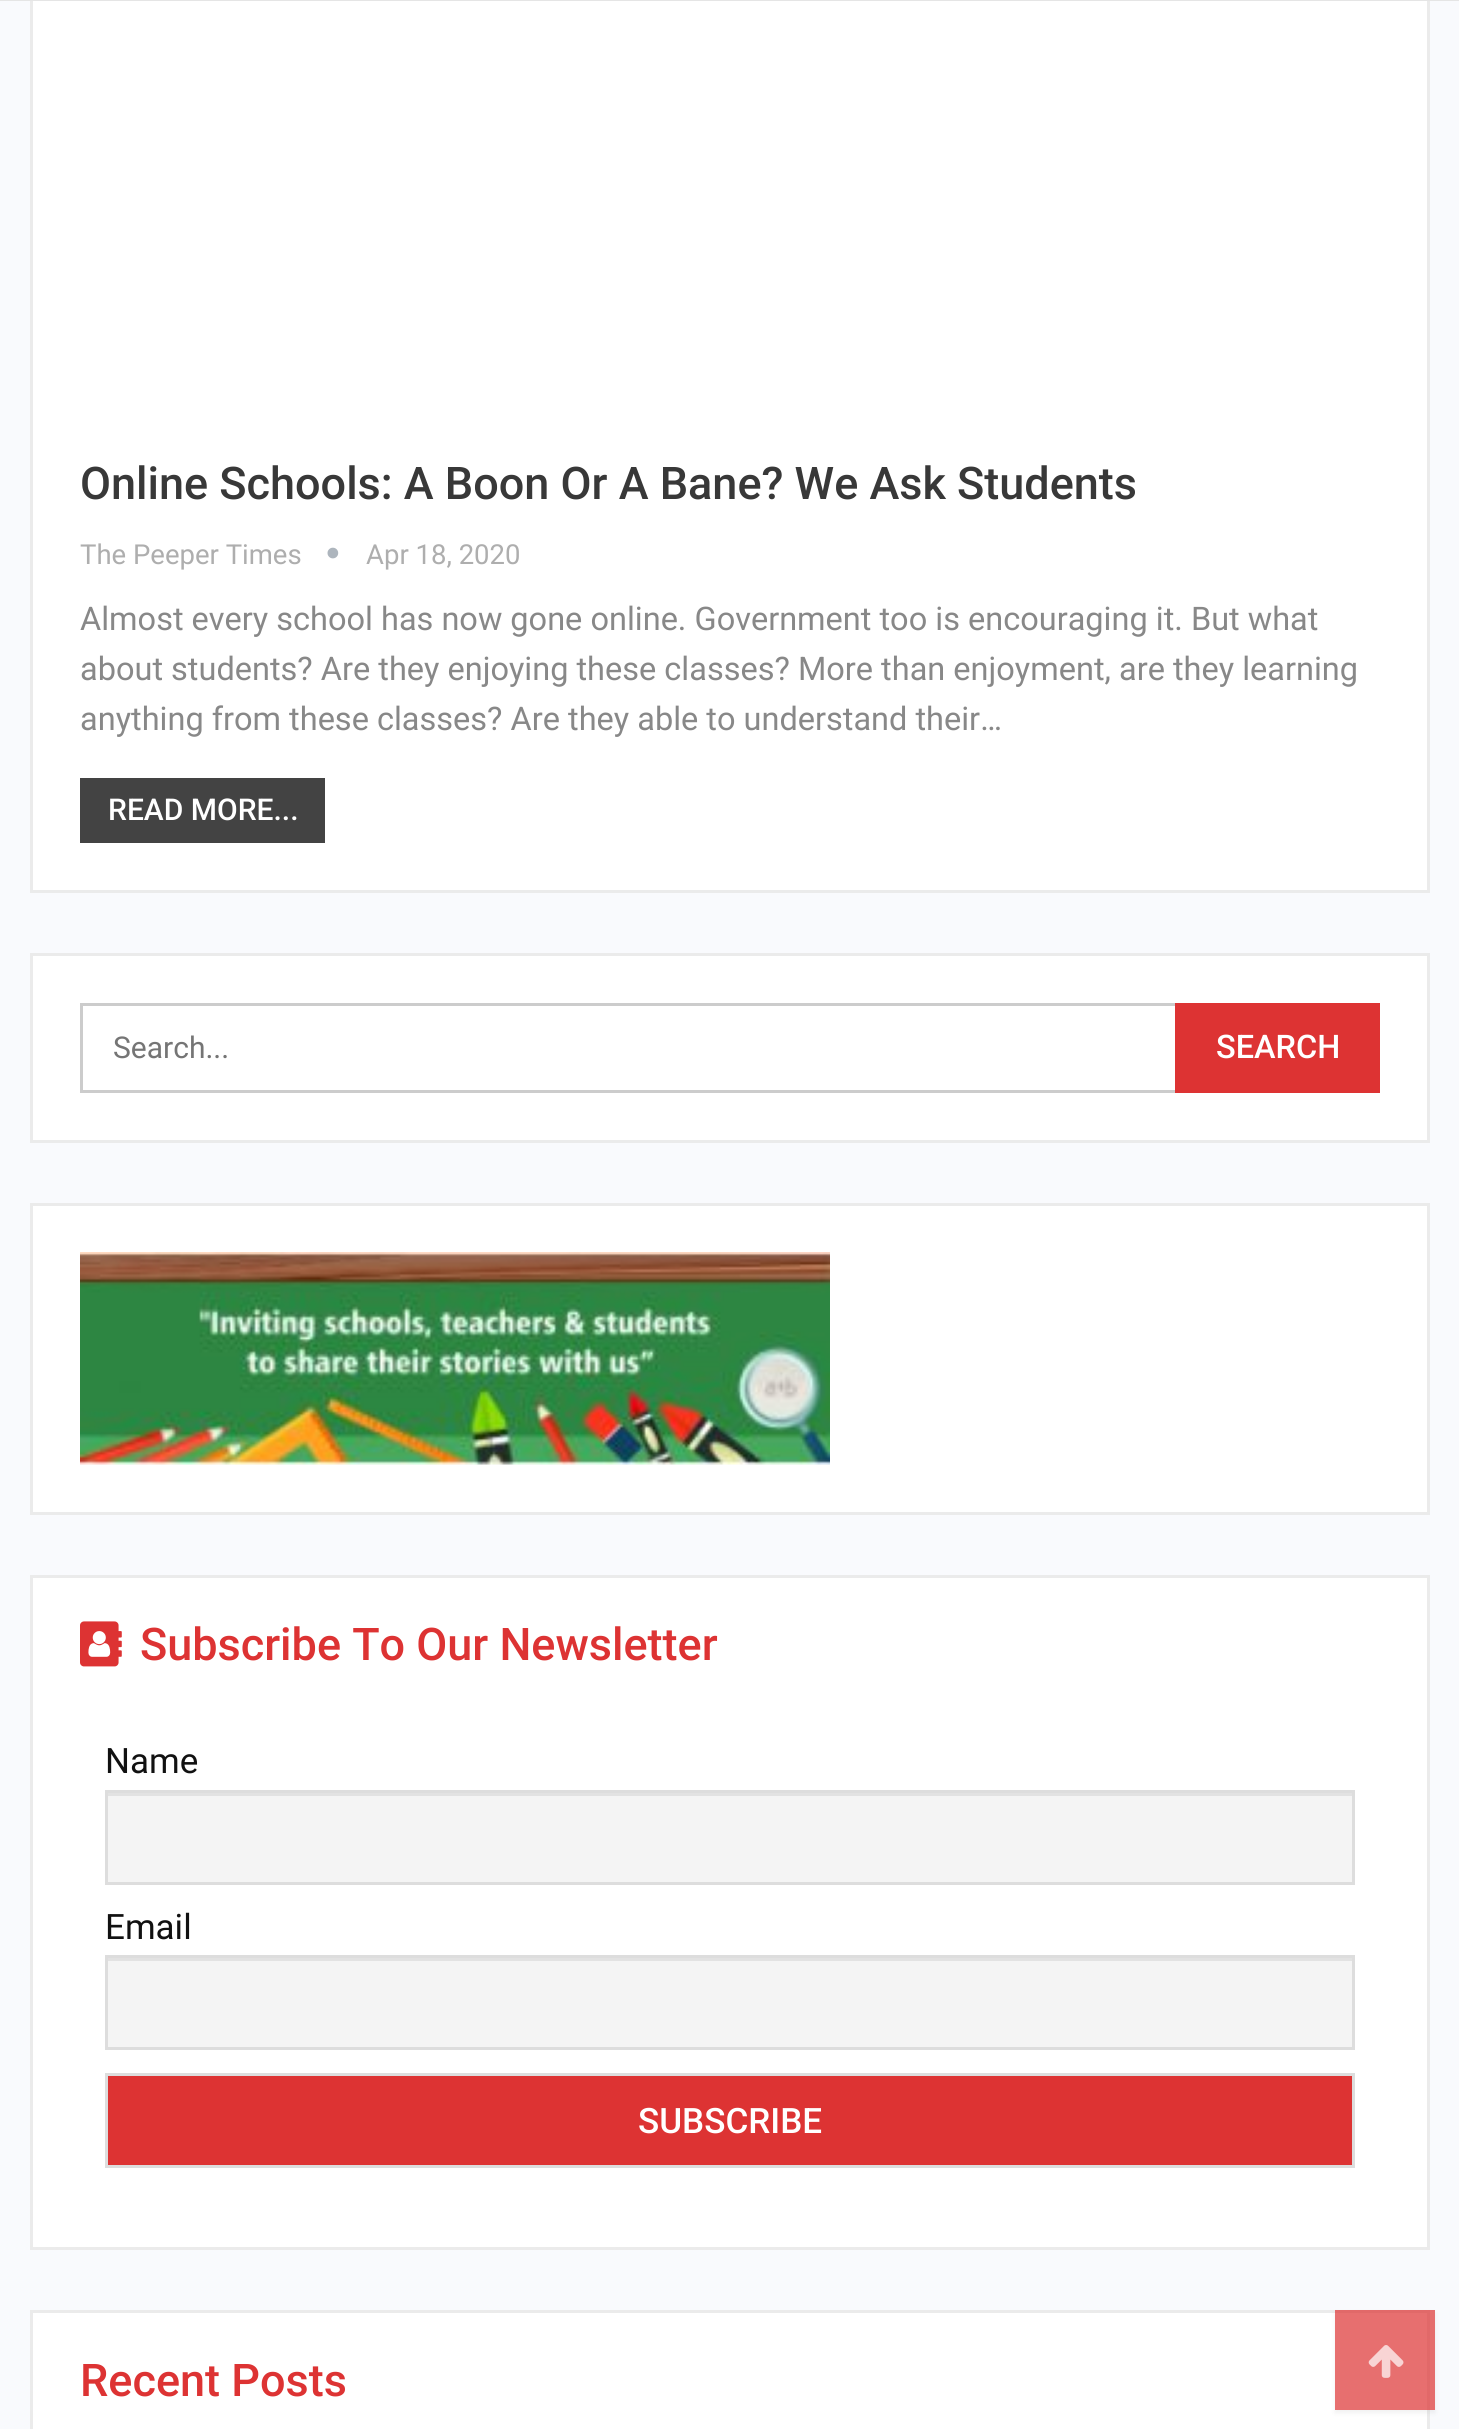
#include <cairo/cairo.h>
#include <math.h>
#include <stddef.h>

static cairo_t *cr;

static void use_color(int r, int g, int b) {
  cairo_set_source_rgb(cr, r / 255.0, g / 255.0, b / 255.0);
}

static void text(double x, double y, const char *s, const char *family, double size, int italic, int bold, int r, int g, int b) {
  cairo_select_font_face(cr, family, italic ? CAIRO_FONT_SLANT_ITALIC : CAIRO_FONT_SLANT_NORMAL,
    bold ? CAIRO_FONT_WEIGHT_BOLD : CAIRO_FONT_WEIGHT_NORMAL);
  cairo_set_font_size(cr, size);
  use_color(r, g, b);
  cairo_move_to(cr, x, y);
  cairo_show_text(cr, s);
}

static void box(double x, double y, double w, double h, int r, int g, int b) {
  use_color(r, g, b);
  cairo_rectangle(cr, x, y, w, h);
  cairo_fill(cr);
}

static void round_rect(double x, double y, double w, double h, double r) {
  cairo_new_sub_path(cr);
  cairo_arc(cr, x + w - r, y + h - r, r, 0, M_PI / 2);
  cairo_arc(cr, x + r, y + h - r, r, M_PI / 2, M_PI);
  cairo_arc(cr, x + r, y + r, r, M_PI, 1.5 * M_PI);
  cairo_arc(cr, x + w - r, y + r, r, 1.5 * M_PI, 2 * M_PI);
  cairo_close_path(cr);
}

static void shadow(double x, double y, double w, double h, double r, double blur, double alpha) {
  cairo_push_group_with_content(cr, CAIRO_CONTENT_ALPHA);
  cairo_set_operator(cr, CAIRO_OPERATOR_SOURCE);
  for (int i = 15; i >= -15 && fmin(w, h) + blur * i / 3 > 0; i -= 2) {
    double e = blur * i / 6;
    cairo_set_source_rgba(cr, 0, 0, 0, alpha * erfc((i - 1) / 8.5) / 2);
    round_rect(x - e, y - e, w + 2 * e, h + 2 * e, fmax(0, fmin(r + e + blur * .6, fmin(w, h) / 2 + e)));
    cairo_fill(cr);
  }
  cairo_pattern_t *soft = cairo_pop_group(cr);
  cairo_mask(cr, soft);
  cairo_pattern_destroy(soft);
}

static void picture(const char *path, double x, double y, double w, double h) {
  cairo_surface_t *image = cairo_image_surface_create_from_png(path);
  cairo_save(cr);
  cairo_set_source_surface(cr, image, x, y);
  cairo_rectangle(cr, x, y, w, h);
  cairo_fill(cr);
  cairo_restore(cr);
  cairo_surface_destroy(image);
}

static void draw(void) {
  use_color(249, 250, 253);
  cairo_paint(cr);
  box(33, 1, 1394, 889, 255, 255, 255);
  cairo_rectangle(cr, 31.5, -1.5, 1397, 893);
  use_color(235, 235, 235);
  cairo_set_line_width(cr, 3);
  cairo_stroke(cr);
  box(0, 0, 1459, 1, 229, 229, 229);
  picture("img_01.png", 327, 547, 12, 12);
  box(80, 778, 245, 65, 67, 67, 67);
  use_color(255, 255, 255);
  cairo_rectangle(cr, 31.5, 954.5, 1397, 187);
  cairo_fill_preserve(cr);
  use_color(235, 235, 235);
  cairo_stroke(cr);
  cairo_rectangle(cr, 81.5, 1004.5, 1297, 87);
  use_color(204, 204, 204);
  cairo_stroke(cr);
  box(1175, 1003, 205, 90, 221, 51, 51);
  use_color(255, 255, 255);
  cairo_rectangle(cr, 31.5, 1204.5, 1397, 309);
  cairo_fill_preserve(cr);
  use_color(235, 235, 235);
  cairo_stroke(cr);
  picture("img_02.png", 80, 1252, 750, 213);
  use_color(255, 255, 255);
  cairo_rectangle(cr, 31.5, 1576.5, 1397, 672);
  cairo_fill_preserve(cr);
  use_color(235, 235, 235);
  cairo_stroke(cr);
  picture("img_03.png", 80, 1621, 42, 46);
  box(108, 1796, 1244, 86, 244, 244, 244);
  box(108, 1793, 1245, 3, 226, 226, 226);
  cairo_rectangle(cr, 106.5, 1791.5, 1247, 92);
  use_color(221, 221, 221);
  cairo_stroke(cr);
  box(108, 1961, 1244, 86, 244, 244, 244);
  box(108, 1958, 1245, 3, 226, 226, 226);
  cairo_rectangle(cr, 106.5, 1956.5, 1247, 92);
  use_color(221, 221, 221);
  cairo_stroke(cr);
  use_color(221, 51, 51);
  cairo_rectangle(cr, 106.5, 2074.5, 1247, 92);
  cairo_fill_preserve(cr);
  use_color(221, 221, 221);
  cairo_stroke(cr);
  use_color(255, 255, 255);
  cairo_rectangle(cr, 31.5, 2311.5, 1397, 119);
  cairo_fill_preserve(cr);
  use_color(235, 235, 235);
  cairo_stroke(cr);
  cairo_save(cr);
  cairo_set_fill_rule(cr, CAIRO_FILL_RULE_EVEN_ODD);
  cairo_new_path(cr);
  cairo_move_to(cr, 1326, 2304);
  cairo_line_to(cr, 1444, 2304);
  cairo_line_to(cr, 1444, 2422);
  cairo_line_to(cr, 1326, 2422);
  cairo_close_path(cr);
  cairo_move_to(cr, 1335, 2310);
  cairo_line_to(cr, 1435, 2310);
  cairo_line_to(cr, 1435, 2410);
  cairo_line_to(cr, 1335, 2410);
  cairo_close_path(cr);
  cairo_clip(cr);
  use_color(0, 0, 0);
  shadow(1335, 2313, 100, 100, 0, 2.5, 0.06);
  cairo_restore(cr);
  cairo_set_source_rgba(cr, 0.867, 0.2, 0.2, 0.7);
  cairo_rectangle(cr, 1335, 2310, 100, 100);
  cairo_fill(cr);
  picture("img_04.png", 1368, 2345, 36, 33);
  text(80, 499, "Online Schools: A Boon Or A Bane? We Ask Students", "Roboto Medium", 45, 0, 0, 56, 56, 56);
  text(80, 564, "The Peeper Times", "Roboto", 27.5, 0, 0, 174, 174, 174);
  text(366, 564, "Apr 18, 2020", "Roboto", 27.5, 0, 0, 174, 174, 174);
  text(80, 630, "Almost every school has now gone online. Government too is encouraging it. But what", "Roboto", 32.5, 0, 0, 136, 136, 136);
  text(80, 680, "about students? Are they enjoying these classes? More than enjoyment, are they learning", "Roboto", 32.5, 0, 0, 136, 136, 136);
  text(80, 730, "anything from these classes? Are they able to understand their…", "Roboto", 32.5, 0, 0, 136, 136, 136);
  text(108, 820, "READ MORE...", "Roboto Medium", 30, 0, 0, 255, 255, 255);
  text(113, 1058, "Search...", "Roboto", 30, 0, 0, 117, 117, 117);
  text(1216, 1058, "SEARCH", "Roboto Medium", 32.5, 0, 0, 255, 255, 255);
  text(140, 1660, "Subscribe To Our Newsletter", "Roboto Medium", 45, 0, 0, 221, 51, 51);
  text(105, 1773, "Name", "Roboto", 35, 0, 0, 17, 17, 17);
  text(105, 1939, "Email", "Roboto", 35, 0, 0, 17, 17, 17);
  text(638, 2133, "SUBSCRIBE", "Roboto Medium", 35, 0, 0, 255, 255, 255);
  text(80, 2396, "Recent Posts", "Roboto Medium", 45, 0, 0, 221, 51, 51);
}

int main(void) {
  cairo_surface_t *surface = cairo_image_surface_create(CAIRO_FORMAT_RGB24, 1459, 2429);
  cr = cairo_create(surface);
  cairo_font_options_t *options = cairo_font_options_create();
  cairo_font_options_set_hint_metrics(options, CAIRO_HINT_METRICS_OFF);
  cairo_font_options_set_hint_style(options, CAIRO_HINT_STYLE_NONE);
  cairo_set_font_options(cr, options);
  cairo_set_miter_limit(cr, 4);
  draw();
  cairo_surface_write_to_png(surface, "out.png");
  cairo_font_options_destroy(options);
  cairo_destroy(cr);
  cairo_surface_destroy(surface);
  return 0;
}
